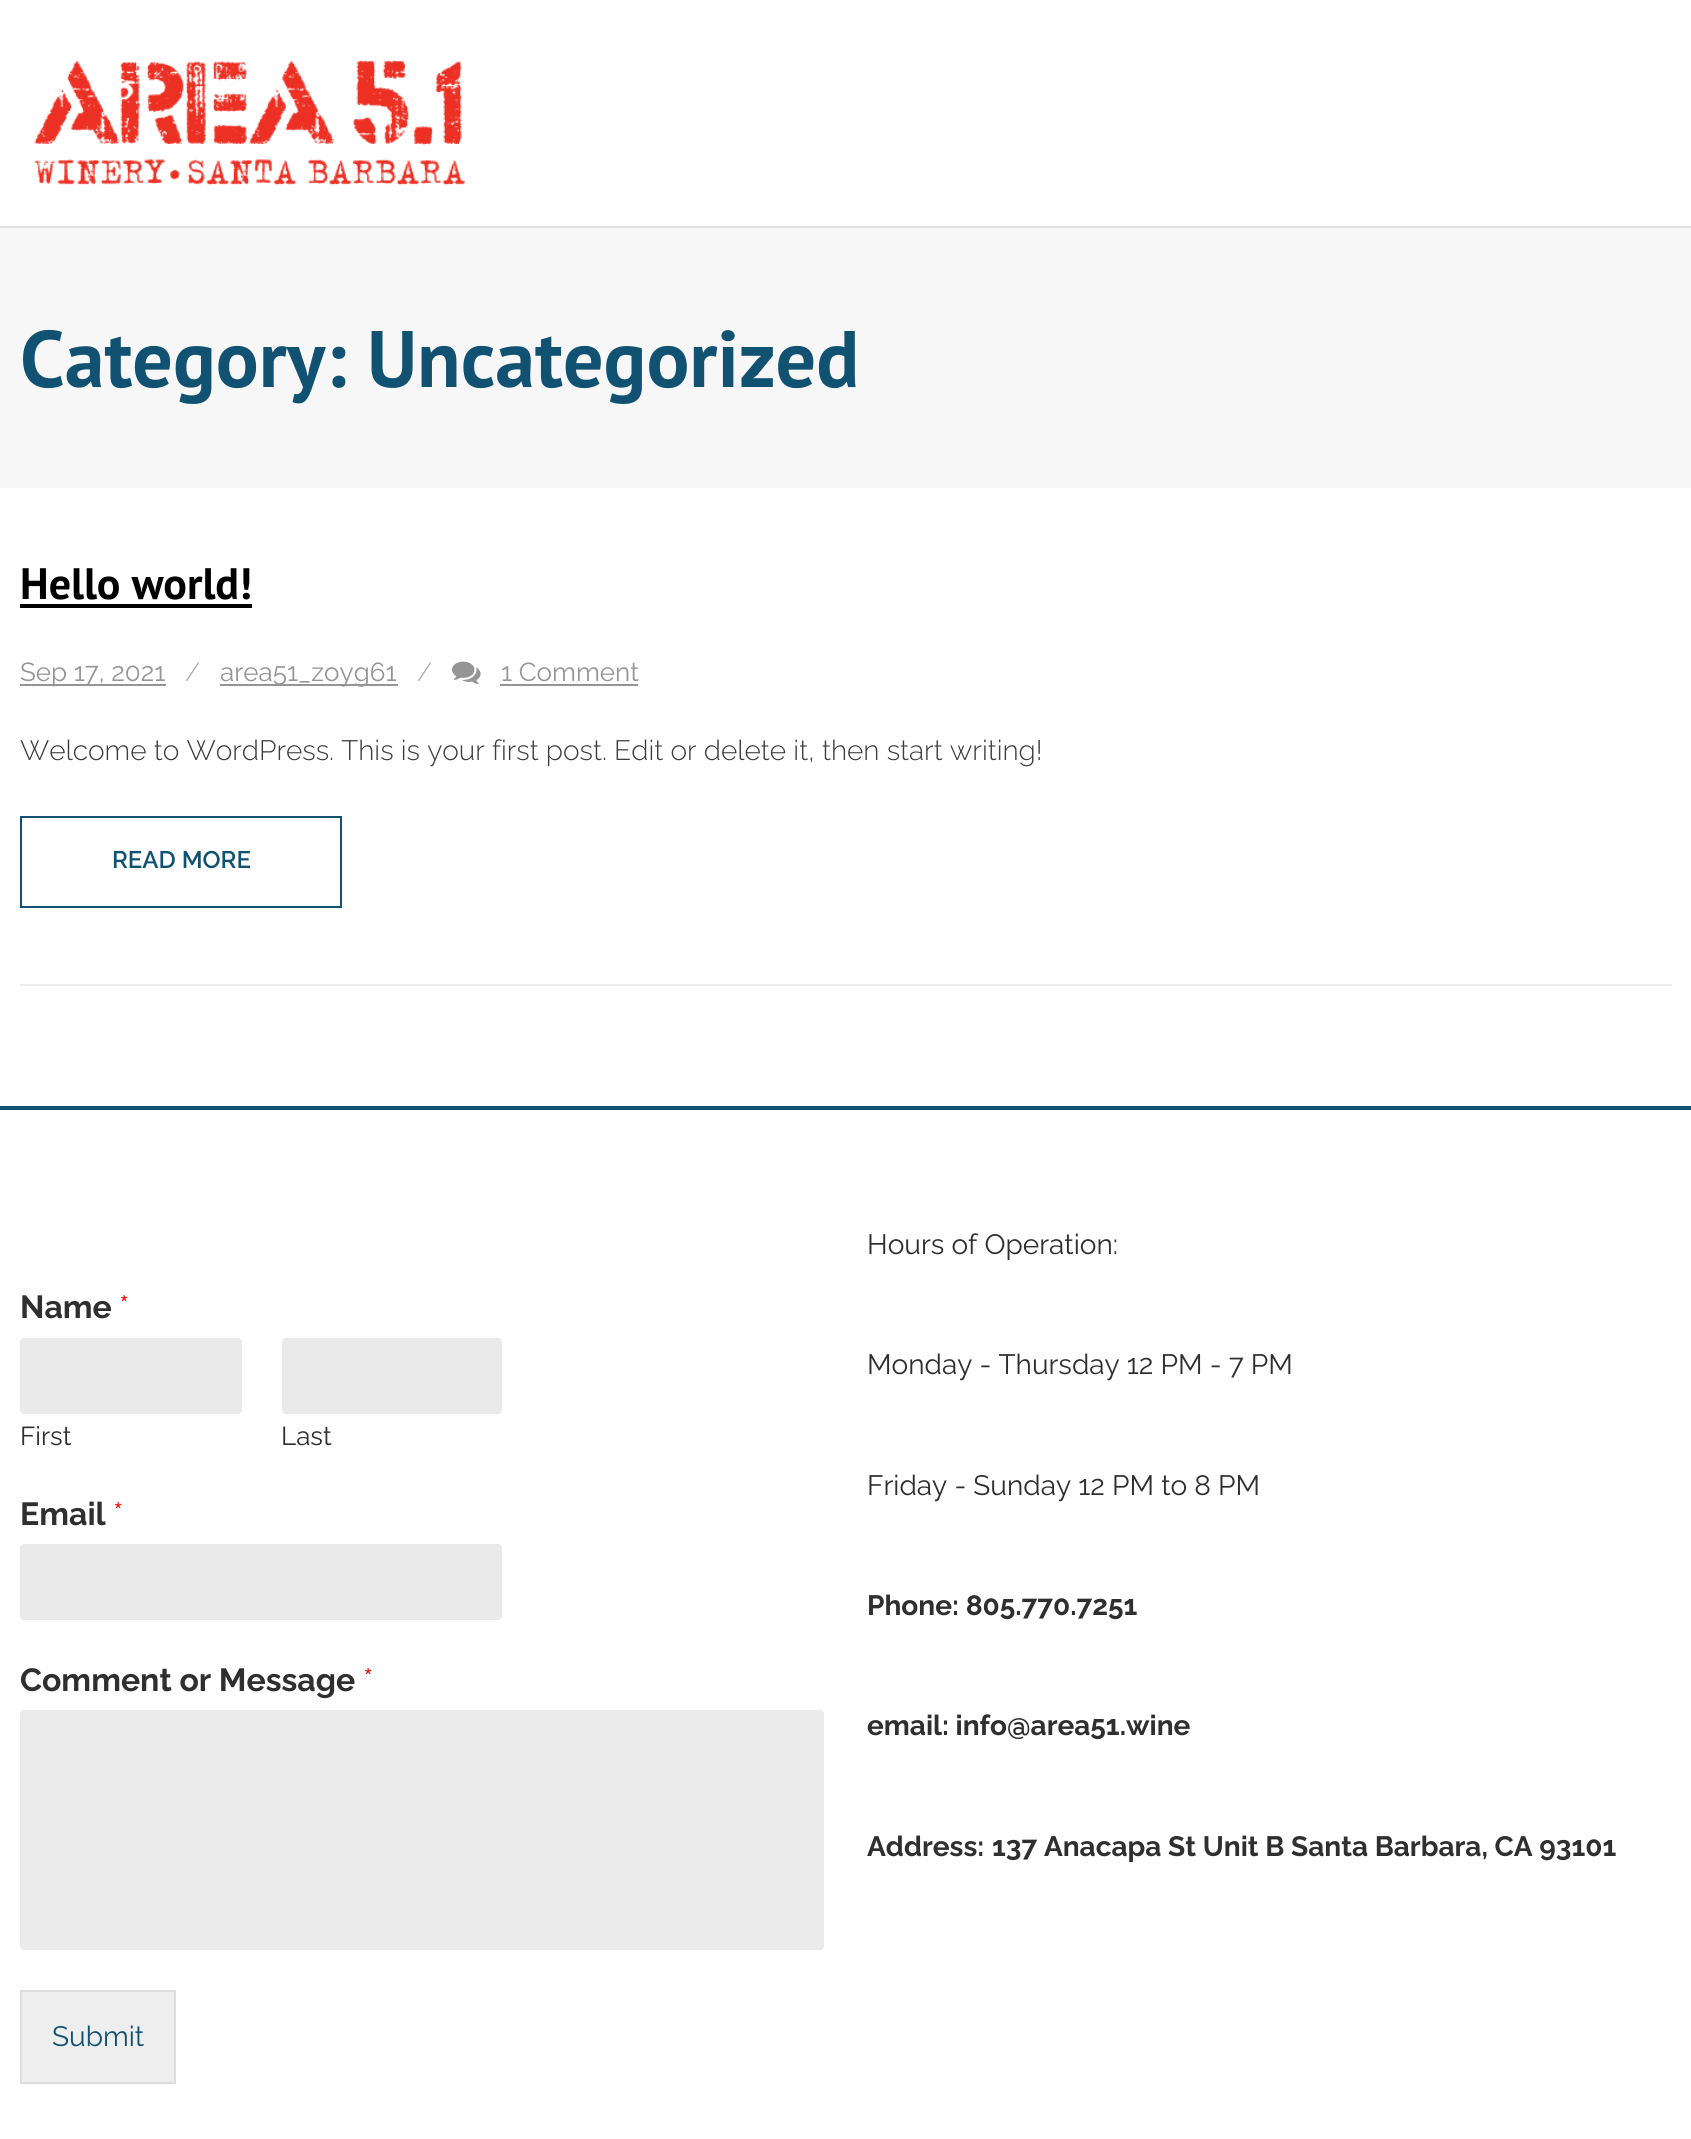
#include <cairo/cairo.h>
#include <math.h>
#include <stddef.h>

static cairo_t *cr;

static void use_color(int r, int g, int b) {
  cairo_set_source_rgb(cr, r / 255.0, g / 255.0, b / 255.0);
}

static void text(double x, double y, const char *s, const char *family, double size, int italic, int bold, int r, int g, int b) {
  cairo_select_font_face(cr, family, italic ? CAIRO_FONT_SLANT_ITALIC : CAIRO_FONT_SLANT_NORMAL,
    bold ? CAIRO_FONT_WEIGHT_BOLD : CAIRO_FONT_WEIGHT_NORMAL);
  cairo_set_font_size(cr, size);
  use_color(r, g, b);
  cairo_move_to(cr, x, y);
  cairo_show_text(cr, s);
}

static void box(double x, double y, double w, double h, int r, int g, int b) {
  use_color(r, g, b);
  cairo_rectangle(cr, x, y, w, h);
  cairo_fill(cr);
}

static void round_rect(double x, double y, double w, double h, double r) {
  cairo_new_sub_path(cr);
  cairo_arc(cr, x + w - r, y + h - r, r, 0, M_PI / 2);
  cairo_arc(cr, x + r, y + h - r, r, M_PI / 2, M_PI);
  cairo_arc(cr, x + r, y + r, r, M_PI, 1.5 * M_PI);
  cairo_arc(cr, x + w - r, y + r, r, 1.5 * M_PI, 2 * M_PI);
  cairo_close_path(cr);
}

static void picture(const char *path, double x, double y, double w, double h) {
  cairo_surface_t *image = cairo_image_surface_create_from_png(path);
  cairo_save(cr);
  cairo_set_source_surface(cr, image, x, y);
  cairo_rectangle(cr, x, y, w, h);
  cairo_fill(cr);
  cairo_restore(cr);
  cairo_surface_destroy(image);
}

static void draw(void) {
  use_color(255, 255, 255);
  cairo_paint(cr);
  box(0, 226, 1691, 2, 225, 225, 225);
  picture("img_01.png", 34, 60, 432, 126);
  box(0, 228, 1691, 260, 247, 247, 247);
  box(20, 984, 1652, 2, 238, 238, 238);
  box(20, 604, 232, 4, 0, 0, 0);
  box(20, 684, 146, 2, 149, 149, 149);
  box(220, 684, 178, 2, 149, 149, 149);
  picture("img_02.png", 452, 661, 29, 23);
  box(500, 684, 138, 2, 149, 149, 149);
  cairo_rectangle(cr, 21, 817, 320, 90);
  use_color(17, 81, 114);
  cairo_stroke(cr);
  box(0, 1106, 1691, 4, 17, 81, 114);
  use_color(234, 234, 234);
  round_rect(20, 1338, 222, 76, 4);
  cairo_fill(cr);
  round_rect(282, 1338, 220, 76, 4);
  cairo_fill(cr);
  round_rect(20, 1544, 482, 76, 4);
  cairo_fill(cr);
  use_color(235, 235, 235);
  round_rect(20, 1710, 804, 240, 4);
  cairo_fill(cr);
  use_color(238, 238, 238);
  cairo_rectangle(cr, 21, 1991, 154, 92);
  cairo_fill_preserve(cr);
  use_color(221, 221, 221);
  cairo_stroke(cr);
  text(20, 387, "Category: Uncategorized", "PT Sans", 80, 0, 1, 17, 81, 114);
  text(20, 599, "Hello world!", "PT Sans", 44, 0, 1, 0, 0, 0);
  text(20, 681, "Sep 17, 2021", "Raleway", 26, 0, 0, 149, 149, 149);
  text(185, 681, "/", "Raleway Light", 26, 0, 0, 170, 170, 170);
  text(220, 681, "area51_zoyg61", "Raleway", 26, 0, 0, 149, 149, 149);
  text(417, 681, "/", "Raleway Light", 26, 0, 0, 170, 170, 170);
  text(501, 681, "1 Comment", "Raleway", 26, 0, 0, 149, 149, 149);
  text(20, 760, "Welcome to WordPress. This is your first post. Edit or delete it, then start writing!", "Raleway Light", 28, 0, 0, 61, 61, 61);
  text(112, 868, "READ MORE", "Raleway SemiBold", 24, 0, 0, 17, 81, 114);
  text(20, 1318, "Name", "Raleway", 32, 0, 1, 47, 47, 47);
  text(119, 1318, "*", "Raleway", 32, 0, 0, 255, 0, 0);
  text(20, 1445, "First", "Raleway", 26, 0, 0, 47, 47, 47);
  text(281, 1445, "Last", "Raleway", 26, 0, 0, 47, 47, 47);
  text(20, 1525, "Email", "Raleway", 32, 0, 1, 47, 47, 47);
  text(113, 1525, "*", "Raleway", 32, 0, 0, 255, 0, 0);
  text(20, 1691, "Comment or Message", "Raleway", 32, 0, 1, 47, 47, 47);
  text(363, 1691, "*", "Raleway", 32, 0, 0, 255, 0, 0);
  text(52, 2046, "Submit", "Raleway", 28, 0, 0, 17, 81, 114);
  text(867, 1254, "Hours of Operation:", "Raleway", 28, 0, 0, 47, 47, 47);
  text(867, 1374, "Monday - Thursday 12 PM - 7 PM", "Raleway", 28, 0, 0, 47, 47, 47);
  text(867, 1495, "Friday - Sunday 12 PM to 8 PM", "Raleway", 28, 0, 0, 47, 47, 47);
  text(867, 1615, "Phone: 805.770.7251", "Raleway", 28, 0, 1, 47, 47, 47);
  text(867, 1735, "email: info@area51.wine", "Raleway", 28, 0, 1, 47, 47, 47);
  text(867, 1856, "Address:", "Raleway", 28, 0, 1, 47, 47, 47);
  text(992, 1856, "137 Anacapa St Unit B Santa Barbara, CA 93101", "Raleway", 28, 0, 1, 47, 47, 47);
}

int main(void) {
  cairo_surface_t *surface = cairo_image_surface_create(CAIRO_FORMAT_RGB24, 1691, 2139);
  cr = cairo_create(surface);
  cairo_font_options_t *options = cairo_font_options_create();
  cairo_font_options_set_hint_metrics(options, CAIRO_HINT_METRICS_OFF);
  cairo_font_options_set_hint_style(options, CAIRO_HINT_STYLE_NONE);
  cairo_set_font_options(cr, options);
  cairo_set_miter_limit(cr, 4);
  draw();
  cairo_surface_write_to_png(surface, "out.png");
  cairo_font_options_destroy(options);
  cairo_destroy(cr);
  cairo_surface_destroy(surface);
  return 0;
}
